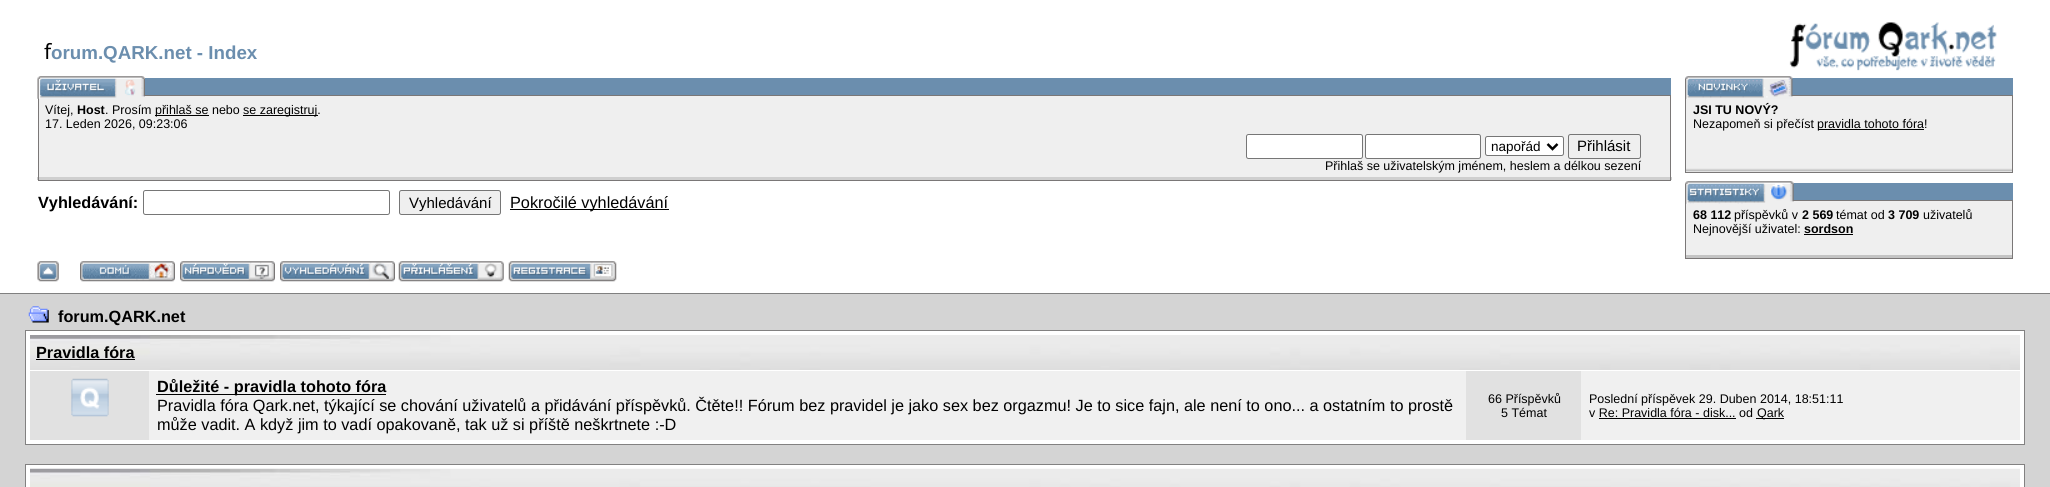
#include <cairo/cairo.h>
#include <math.h>
#include <stddef.h>

static cairo_t *cr;

static void use_color(int r, int g, int b) {
  cairo_set_source_rgb(cr, r / 255.0, g / 255.0, b / 255.0);
}

static void text(double x, double y, const char *s, const char *family, double size, int italic, int bold, int r, int g, int b) {
  cairo_select_font_face(cr, family, italic ? CAIRO_FONT_SLANT_ITALIC : CAIRO_FONT_SLANT_NORMAL,
    bold ? CAIRO_FONT_WEIGHT_BOLD : CAIRO_FONT_WEIGHT_NORMAL);
  cairo_set_font_size(cr, size);
  use_color(r, g, b);
  cairo_move_to(cr, x, y);
  cairo_show_text(cr, s);
}

static void box(double x, double y, double w, double h, int r, int g, int b) {
  use_color(r, g, b);
  cairo_rectangle(cr, x, y, w, h);
  cairo_fill(cr);
}

static void round_rect(double x, double y, double w, double h, double r) {
  cairo_new_sub_path(cr);
  cairo_arc(cr, x + w - r, y + h - r, r, 0, M_PI / 2);
  cairo_arc(cr, x + r, y + h - r, r, M_PI / 2, M_PI);
  cairo_arc(cr, x + r, y + r, r, M_PI, 1.5 * M_PI);
  cairo_arc(cr, x + w - r, y + r, r, 1.5 * M_PI, 2 * M_PI);
  cairo_close_path(cr);
}

static void picture(const char *path, double x, double y, double w, double h) {
  cairo_surface_t *image = cairo_image_surface_create_from_png(path);
  cairo_save(cr);
  cairo_set_source_surface(cr, image, x, y);
  cairo_rectangle(cr, x, y, w, h);
  cairo_fill(cr);
  cairo_restore(cr);
  cairo_surface_destroy(image);
}

static void draw(void) {
  use_color(255, 255, 255);
  cairo_paint(cr);
  box(0, 293, 2050, 1, 128, 128, 128);
  picture("img_01.png", 1789, 22, 208, 49);
  box(145, 78, 1526, 17, 107, 142, 174);
  box(39, 96, 1631, 81, 239, 239, 239);
  box(37, 177, 1635, 3, 207, 207, 207);
  cairo_rectangle(cr, 38.5, 95.5, 1632, 85);
  use_color(122, 119, 119);
  cairo_set_line_width(cr, 1);
  cairo_stroke(cr);
  picture("img_02.png", 37, 76, 108, 23);
  box(155, 115, 54, 1, 0, 0, 0);
  box(243, 115, 75, 1, 0, 0, 0);
  use_color(255, 255, 255);
  round_rect(1246.5, 134.5, 116, 24, 2);
  cairo_fill_preserve(cr);
  use_color(118, 118, 118);
  cairo_stroke(cr);
  use_color(255, 255, 255);
  round_rect(1365.5, 134.5, 115, 24, 2);
  cairo_fill_preserve(cr);
  use_color(118, 118, 118);
  cairo_stroke(cr);
  use_color(255, 255, 255);
  round_rect(1485.5, 136.5, 78, 19, 2);
  cairo_fill_preserve(cr);
  use_color(118, 118, 118);
  cairo_stroke(cr);
  cairo_new_path(cr);
  cairo_move_to(cr, 1547.5, 144);
  cairo_line_to(cr, 1552.5, 149);
  cairo_line_to(cr, 1557.5, 144);
  use_color(0, 0, 0);
  cairo_set_line_width(cr, 2.5);
  cairo_stroke(cr);
  round_rect(1568.5, 134.5, 72, 24, 2);
  use_color(118, 118, 118);
  cairo_set_line_width(cr, 1);
  cairo_stroke(cr);
  round_rect(143.5, 190.5, 246, 24, 2);
  cairo_stroke(cr);
  use_color(239, 239, 239);
  round_rect(399.5, 190.5, 101, 24, 2);
  cairo_fill_preserve(cr);
  use_color(118, 118, 118);
  cairo_stroke(cr);
  box(510, 209, 159, 1, 0, 0, 0);
  box(1792, 78, 221, 17, 107, 142, 174);
  box(1686, 96, 326, 76, 239, 239, 239);
  picture("img_03.png", 1686, 168, 326, 4);
  cairo_rectangle(cr, 1685.5, 95.5, 327, 77);
  use_color(122, 119, 119);
  cairo_stroke(cr);
  picture("img_04.png", 1685, 76, 108, 23);
  box(1818, 129, 106, 1, 0, 0, 0);
  box(1793, 183, 220, 17, 107, 142, 174);
  box(1686, 201, 326, 54, 239, 239, 239);
  box(1685, 255, 328, 3, 196, 196, 196);
  cairo_rectangle(cr, 1685.5, 200.5, 327, 58);
  use_color(122, 119, 119);
  cairo_stroke(cr);
  picture("img_05.png", 1685, 181, 109, 23);
  box(1804, 234, 49, 1, 0, 0, 0);
  picture("img_06.png", 37, 261, 22, 21);
  picture("img_07.png", 80, 261, 95, 21);
  picture("img_08.png", 180, 261, 95, 21);
  picture("img_09.png", 280, 261, 115, 21);
  picture("img_10.png", 398, 261, 106, 21);
  picture("img_11.png", 508, 261, 109, 21);
  box(0, 294, 2050, 193, 212, 212, 212);
  picture("img_12.png", 28, 306, 21, 17);
  use_color(255, 255, 255);
  cairo_rectangle(cr, 25.5, 330.5, 1999, 114);
  cairo_fill_preserve(cr);
  use_color(130, 129, 129);
  cairo_stroke(cr);
  picture("img_13.png", 30, 335, 1990, 35);
  box(36, 359, 99, 1, 0, 0, 0);
  box(149, 371, 1871, 69, 240, 240, 240);
  box(30, 371, 119, 69, 225, 225, 225);
  picture("img_14.png", 71, 378, 38, 39);
  box(156, 394, 230, 1, 0, 0, 0);
  box(1466, 371, 115, 69, 225, 225, 225);
  box(1756, 418, 28, 1, 0, 0, 0);
  box(1599, 418, 137, 1, 0, 0, 0);
  use_color(255, 255, 255);
  cairo_rectangle(cr, 25.5, 464.5, 1999, 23);
  cairo_fill_preserve(cr);
  use_color(130, 129, 129);
  cairo_stroke(cr);
  picture("img_15.png", 30, 468, 1990, 19);
  text(44, 59, "f", "Noto Sans", 21, 0, 0, 0, 0, 0);
  text(51, 59, "orum.QARK.net - Index", "Liberation Sans", 18.75, 0, 1, 107, 142, 174);
  text(45, 114, "Vítej,", "Liberation Sans", 12.5, 0, 0, 0, 0, 0);
  text(77, 114, "Host", "Liberation Sans", 12.5, 0, 1, 0, 0, 0);
  text(105, 114, ". Prosím", "Liberation Sans", 12.5, 0, 0, 0, 0, 0);
  text(155, 114, "přihlaš se nebo", "Liberation Sans", 12.5, 0, 0, 0, 0, 0);
  text(243, 114, "se zaregistruj.", "Liberation Sans", 12.5, 0, 0, 0, 0, 0);
  text(45, 128, "17. Leden 2026, 09:23:06", "Liberation Sans", 12.5, 0, 0, 0, 0, 0);
  text(1491, 151, "napořád", "Liberation Sans", 13.5, 0, 0, 0, 0, 0);
  text(1577, 151, "Přihlásit", "Liberation Sans", 15, 0, 0, 0, 0, 0);
  text(1325, 170, "Přihlaš se uživatelským jménem, heslem a délkou sezení", "Liberation Sans", 12.5, 0, 0, 0, 0, 0);
  text(38, 208, "Vyhledávání:", "Liberation Sans", 16.25, 0, 1, 0, 0, 0);
  text(409, 208, "Vyhledávání", "Liberation Sans", 15, 0, 0, 0, 0, 0);
  text(510, 208, "Pokročilé vyhledávání", "Liberation Sans", 16.25, 0, 0, 0, 0, 0);
  text(1693, 114, "JSI TU NOVÝ?", "Liberation Sans", 12.5, 0, 1, 0, 0, 0);
  text(1693, 128, "Nezapomeň si přečíst", "Liberation Sans", 12.5, 0, 0, 0, 0, 0);
  text(1817, 128, "pravidla tohoto fóra!", "Liberation Sans", 12.5, 0, 0, 0, 0, 0);
  text(1693, 219, "68 112", "Liberation Sans", 12.5, 0, 1, 0, 0, 0);
  text(1734, 219, "příspěvků v", "Liberation Sans", 12.5, 0, 0, 0, 0, 0);
  text(1802, 219, "2 569", "Liberation Sans", 12.5, 0, 1, 0, 0, 0);
  text(1836, 219, "témat od", "Liberation Sans", 12.5, 0, 0, 0, 0, 0);
  text(1888, 219, "3 709", "Liberation Sans", 12.5, 0, 1, 0, 0, 0);
  text(1923, 219, "uživatelů", "Liberation Sans", 12.5, 0, 0, 0, 0, 0);
  text(1693, 233, "Nejnovější uživatel:", "Liberation Sans", 12.5, 0, 0, 0, 0, 0);
  text(1804, 233, "sordson", "Liberation Sans", 12.5, 0, 1, 0, 0, 0);
  text(58, 322, "forum.QARK.net", "Liberation Sans", 16.25, 0, 1, 0, 0, 0);
  text(36, 358, "Pravidla fóra", "Liberation Sans", 16.25, 0, 1, 0, 0, 0);
  text(157, 392, "Důležité - pravidla tohoto fóra", "Liberation Sans", 16.25, 0, 1, 0, 0, 0);
  text(157, 411, "Pravidla fóra Qark.net, týkající se chování uživatelů a přidávání příspěvků. Čtěte!! Fórum bez pravidel je jako sex bez orgazmu! Je to sice fajn, ale není to ono... a ostatním to prostě", "Liberation Sans", 16.25, 0, 0, 0, 0, 0);
  text(157, 430, "může vadit. A když jim to vadí opakovaně, tak už si příště neškrtnete :-D", "Liberation Sans", 16.25, 0, 0, 0, 0, 0);
  text(1488, 403, "66 Příspěvků", "Liberation Sans", 12.5, 0, 0, 0, 0, 0);
  text(1501, 417, "5 Témat", "Liberation Sans", 12.5, 0, 0, 0, 0, 0);
  text(1589, 403, "Poslední příspěvek 29. Duben 2014, 18:51:11", "Liberation Sans", 12.5, 0, 0, 0, 0, 0);
  text(1589, 417, "v Re: Pravidla fóra - disk... od", "Liberation Sans", 12.5, 0, 0, 0, 0, 0);
  text(1757, 417, "Qark", "Liberation Sans", 12.5, 0, 0, 0, 0, 0);
}

int main(void) {
  cairo_surface_t *surface = cairo_image_surface_create(CAIRO_FORMAT_RGB24, 2050, 487);
  cr = cairo_create(surface);
  cairo_font_options_t *options = cairo_font_options_create();
  cairo_font_options_set_hint_metrics(options, CAIRO_HINT_METRICS_OFF);
  cairo_font_options_set_hint_style(options, CAIRO_HINT_STYLE_NONE);
  cairo_set_font_options(cr, options);
  cairo_set_miter_limit(cr, 4);
  draw();
  cairo_surface_write_to_png(surface, "out.png");
  cairo_font_options_destroy(options);
  cairo_destroy(cr);
  cairo_surface_destroy(surface);
  return 0;
}
